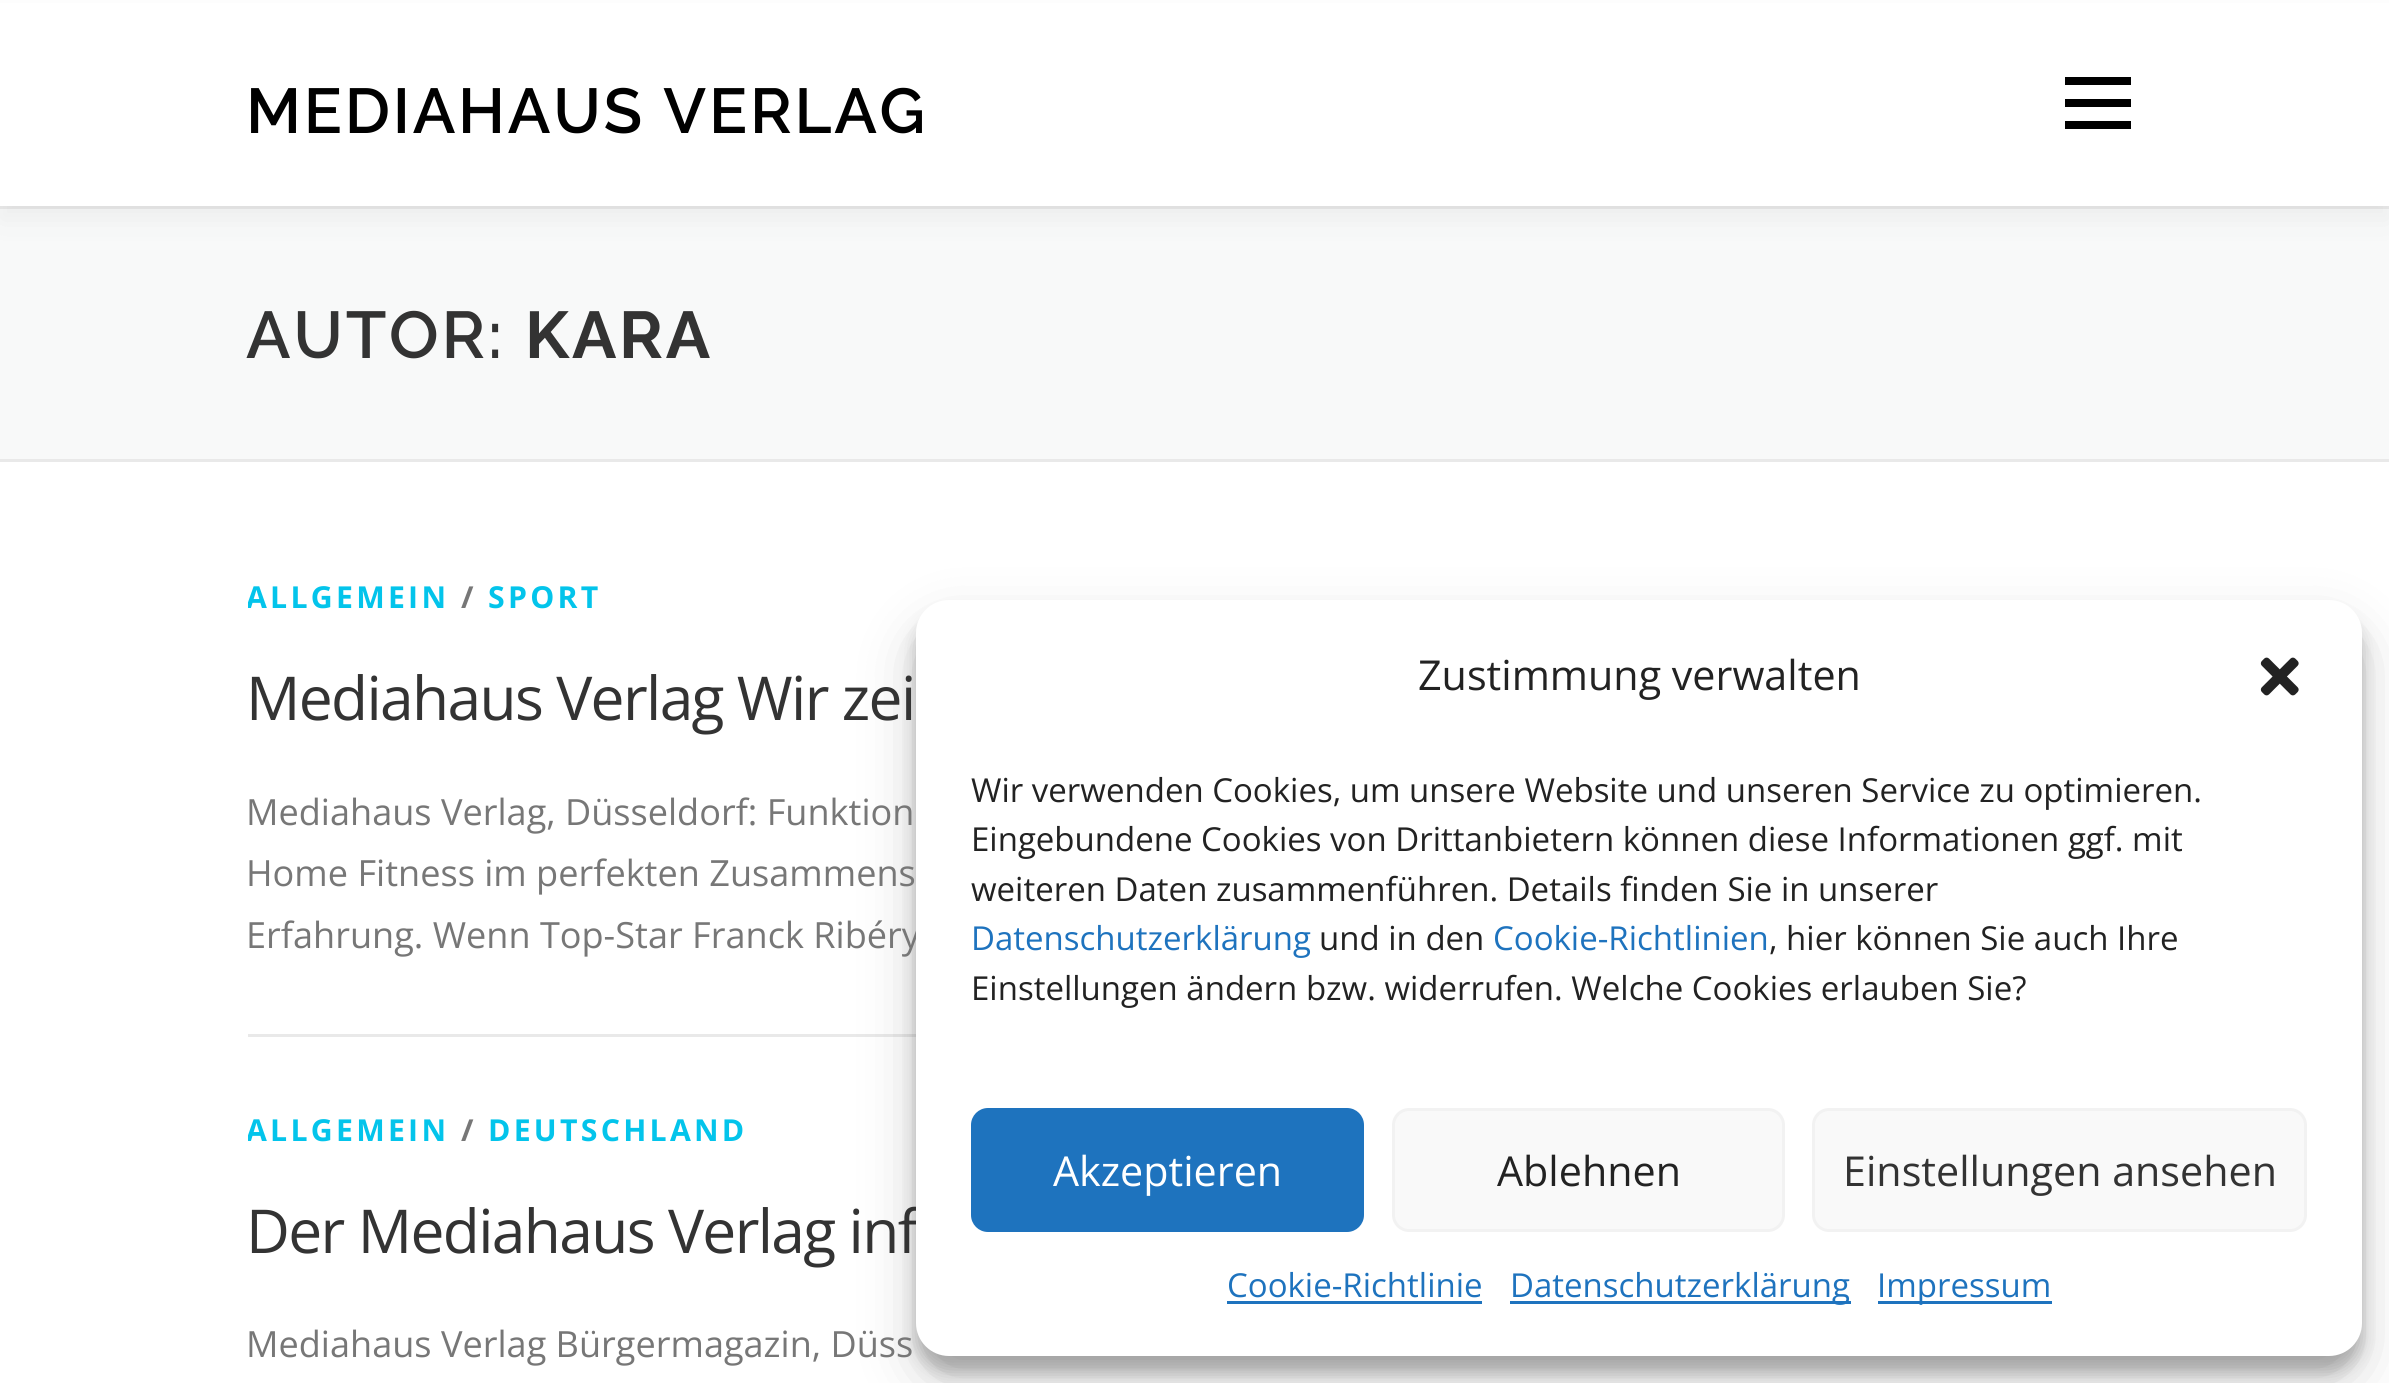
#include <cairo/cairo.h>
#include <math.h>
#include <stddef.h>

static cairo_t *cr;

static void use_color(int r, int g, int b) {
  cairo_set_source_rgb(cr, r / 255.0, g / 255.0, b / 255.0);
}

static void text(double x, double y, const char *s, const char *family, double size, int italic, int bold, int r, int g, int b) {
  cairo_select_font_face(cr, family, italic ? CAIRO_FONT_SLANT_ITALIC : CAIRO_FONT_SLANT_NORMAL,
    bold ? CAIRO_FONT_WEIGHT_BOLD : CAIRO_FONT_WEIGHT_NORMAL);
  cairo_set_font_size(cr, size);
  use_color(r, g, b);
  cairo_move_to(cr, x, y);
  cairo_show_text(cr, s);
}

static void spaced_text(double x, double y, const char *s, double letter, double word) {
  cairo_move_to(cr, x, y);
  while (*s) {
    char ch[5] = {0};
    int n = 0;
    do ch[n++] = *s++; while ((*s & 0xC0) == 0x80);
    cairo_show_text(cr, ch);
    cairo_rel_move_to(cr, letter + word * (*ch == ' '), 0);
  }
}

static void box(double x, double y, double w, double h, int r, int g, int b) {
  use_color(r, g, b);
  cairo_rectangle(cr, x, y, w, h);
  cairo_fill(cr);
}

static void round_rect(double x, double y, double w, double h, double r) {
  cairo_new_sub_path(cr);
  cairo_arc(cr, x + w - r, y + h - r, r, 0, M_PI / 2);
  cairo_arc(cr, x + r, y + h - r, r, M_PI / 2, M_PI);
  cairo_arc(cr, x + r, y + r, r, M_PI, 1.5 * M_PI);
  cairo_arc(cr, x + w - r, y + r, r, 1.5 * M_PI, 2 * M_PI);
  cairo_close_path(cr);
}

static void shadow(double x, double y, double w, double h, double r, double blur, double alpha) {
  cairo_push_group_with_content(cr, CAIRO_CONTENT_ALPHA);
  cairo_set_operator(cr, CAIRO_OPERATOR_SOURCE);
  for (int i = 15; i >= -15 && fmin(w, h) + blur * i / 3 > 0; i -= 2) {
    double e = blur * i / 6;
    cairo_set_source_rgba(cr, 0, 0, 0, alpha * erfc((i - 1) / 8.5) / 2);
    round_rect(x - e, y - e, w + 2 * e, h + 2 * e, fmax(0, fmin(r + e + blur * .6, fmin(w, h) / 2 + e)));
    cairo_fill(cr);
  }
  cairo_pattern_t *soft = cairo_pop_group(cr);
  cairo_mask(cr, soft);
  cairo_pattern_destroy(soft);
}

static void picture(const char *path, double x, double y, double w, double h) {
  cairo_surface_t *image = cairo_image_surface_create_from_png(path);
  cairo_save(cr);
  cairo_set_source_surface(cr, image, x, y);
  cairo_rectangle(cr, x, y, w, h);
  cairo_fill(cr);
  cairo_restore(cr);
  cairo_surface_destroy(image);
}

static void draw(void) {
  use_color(255, 255, 255);
  cairo_paint(cr);
  box(0, 209, 2389, 250, 248, 249, 249);
  box(0, 206, 2389, 3, 233, 233, 233);
  use_color(50, 50, 50);
  shadow(0, 14, 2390, 206, 0, 14, 0.06);
  box(0, 3, 2389, 203, 255, 255, 255);
  box(2065, 99, 66, 8, 0, 0, 0);
  box(2065, 77, 66, 8, 0, 0, 0);
  box(2065, 121, 66, 8, 0, 0, 0);
  box(0, 459, 2389, 3, 233, 233, 233);
  box(248, 1034, 668, 3, 233, 233, 233);
  use_color(0, 0, 0);
  shadow(916, 616, 1446, 756, 33, 8, 0.23);
  shadow(916, 627, 1446, 756, 33, 27.5, 0.19);
  cairo_select_font_face(cr, "Raleway SemiBold", CAIRO_FONT_SLANT_NORMAL, CAIRO_FONT_WEIGHT_NORMAL);
  cairo_set_font_size(cr, 63.25);
  use_color(0, 0, 0);
  spaced_text(246, 133, "MEDIAHAUS VERLAG", 2.75, 0);
  cairo_set_font_size(cr, 66);
  use_color(51, 51, 51);
  spaced_text(246, 358, "AUTOR:", 2.75, 0);
  cairo_select_font_face(cr, "Raleway", CAIRO_FONT_SLANT_NORMAL, CAIRO_FONT_WEIGHT_BOLD);
  spaced_text(525, 358, "KARA", 2.75, 0);
  cairo_save(cr);
  cairo_rectangle(cr, 248, 572, 1897, 393);
  cairo_clip(cr);
  cairo_select_font_face(cr, "Open Sans", CAIRO_FONT_SLANT_NORMAL, CAIRO_FONT_WEIGHT_BOLD);
  cairo_set_font_size(cr, 30.25);
  use_color(3, 196, 235);
  spaced_text(246, 608, "ALLGEMEIN", 3.25, 0);
  cairo_restore(cr);
  cairo_select_font_face(cr, "Open Sans", CAIRO_FONT_SLANT_NORMAL, CAIRO_FONT_WEIGHT_BOLD);
  cairo_set_font_size(cr, 30.25);
  use_color(119, 119, 119);
  spaced_text(461, 608, "/", 3.25, 0);
  use_color(3, 196, 235);
  spaced_text(488, 608, "SPORT", 3.25, 0);
  cairo_select_font_face(cr, "Open Sans", CAIRO_FONT_SLANT_NORMAL, CAIRO_FONT_WEIGHT_NORMAL);
  cairo_set_font_size(cr, 60.5);
  use_color(51, 51, 51);
  spaced_text(246, 720, "Mediahaus Verlag Wir zei", -1.65, 0);
  text(246, 825, "Mediahaus Verlag, Düsseldorf: Funktion", "Open Sans", 36.1, 0, 0, 119, 119, 119);
  text(246, 886, "Home Fitness im perfekten Zusammens", "Open Sans", 36.1, 0, 0, 119, 119, 119);
  text(246, 948, "Erfahrung. Wenn Top-Star Franck Ribéry", "Open Sans", 36.1, 0, 0, 119, 119, 119);
  cairo_save(cr);
  cairo_rectangle(cr, 248, 1106, 1897, 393);
  cairo_clip(cr);
  cairo_select_font_face(cr, "Open Sans", CAIRO_FONT_SLANT_NORMAL, CAIRO_FONT_WEIGHT_BOLD);
  cairo_set_font_size(cr, 30.25);
  use_color(3, 196, 235);
  spaced_text(246, 1141, "ALLGEMEIN", 3.25, 0);
  cairo_restore(cr);
  cairo_select_font_face(cr, "Open Sans", CAIRO_FONT_SLANT_NORMAL, CAIRO_FONT_WEIGHT_BOLD);
  cairo_set_font_size(cr, 30.25);
  spaced_text(461, 1141, "/", 3.25, 0);
  use_color(3, 196, 235);
  spaced_text(488, 1141, "DEUTSCHLAND", 3.25, 0);
  cairo_select_font_face(cr, "Open Sans", CAIRO_FONT_SLANT_NORMAL, CAIRO_FONT_WEIGHT_NORMAL);
  cairo_set_font_size(cr, 60.5);
  use_color(51, 51, 51);
  spaced_text(246, 1253, "Der Mediahaus Verlag inf", -1.65, 0);
  text(246, 1357, "Mediahaus Verlag Bürgermagazin, Düss", "Open Sans", 36.1, 0, 0, 119, 119, 119);
  use_color(255, 255, 255);
  round_rect(916, 600, 1446, 756, 33);
  cairo_fill(cr);
  text(1418, 690, "Zustimmung verwalten", "Open Sans", 41.25, 0, 0, 34, 34, 34);
  picture("img_01.png", 2260, 657, 39, 39);
  text(971, 802, "Wir verwenden Cookies, um unsere Website und unseren Service zu optimieren.", "Open Sans", 33, 0, 0, 34, 34, 34);
  text(971, 851, "Eingebundene Cookies von Drittanbietern können diese Informationen ggf. mit", "Open Sans", 33, 0, 0, 34, 34, 34);
  text(971, 901, "weiteren Daten zusammenführen. Details finden Sie in unserer", "Open Sans", 33, 0, 0, 34, 34, 34);
  text(971, 950, "Datenschutzerklärung", "Open Sans", 33, 0, 0, 30, 115, 190);
  text(1319, 950, "und in den", "Open Sans", 33, 0, 0, 34, 34, 34);
  text(1493, 950, "Cookie-Richtlinien", "Open Sans", 33, 0, 0, 30, 115, 190);
  text(1769, 950, ", hier können Sie auch Ihre", "Open Sans", 33, 0, 0, 34, 34, 34);
  text(971, 1000, "Einstellungen ändern bzw. widerrufen. Welche Cookies erlauben Sie?", "Open Sans", 33, 0, 0, 34, 34, 34);
  use_color(30, 115, 190);
  round_rect(972.5, 1109.5, 390, 121, 15.5);
  cairo_fill_preserve(cr);
  cairo_set_line_width(cr, 3);
  cairo_stroke(cr);
  text(1053, 1186, "Akzeptieren", "Open Sans", 41.25, 0, 0, 255, 255, 255);
  use_color(249, 249, 249);
  round_rect(1393.5, 1109.5, 390, 121, 15.5);
  cairo_fill_preserve(cr);
  use_color(242, 242, 242);
  cairo_stroke(cr);
  text(1497, 1186, "Ablehnen", "Open Sans", 41.25, 0, 0, 34, 34, 34);
  use_color(249, 249, 249);
  round_rect(1813.5, 1109.5, 492, 121, 15.5);
  cairo_fill_preserve(cr);
  use_color(242, 242, 242);
  cairo_stroke(cr);
  text(1843, 1186, "Einstellungen ansehen", "Open Sans", 41.25, 0, 0, 51, 51, 51);
  text(1227, 1297, "Cookie-Richtlinie", "Open Sans", 33, 0, 0, 30, 115, 190);
  box(1227, 1301, 255, 3, 30, 115, 190);
  box(1510, 1301, 341, 3, 30, 115, 190);
  text(1510, 1297, "Datenschutzerklärung", "Open Sans", 33, 0, 0, 30, 115, 190);
  box(1878, 1301, 174, 3, 30, 115, 190);
  text(1877, 1297, "Impressum", "Open Sans", 33, 0, 0, 30, 115, 190);
}

int main(void) {
  cairo_surface_t *surface = cairo_image_surface_create(CAIRO_FORMAT_RGB24, 2389, 1383);
  cr = cairo_create(surface);
  cairo_font_options_t *options = cairo_font_options_create();
  cairo_font_options_set_hint_metrics(options, CAIRO_HINT_METRICS_OFF);
  cairo_font_options_set_hint_style(options, CAIRO_HINT_STYLE_NONE);
  cairo_set_font_options(cr, options);
  cairo_set_miter_limit(cr, 4);
  draw();
  cairo_surface_write_to_png(surface, "out.png");
  cairo_font_options_destroy(options);
  cairo_destroy(cr);
  cairo_surface_destroy(surface);
  return 0;
}
